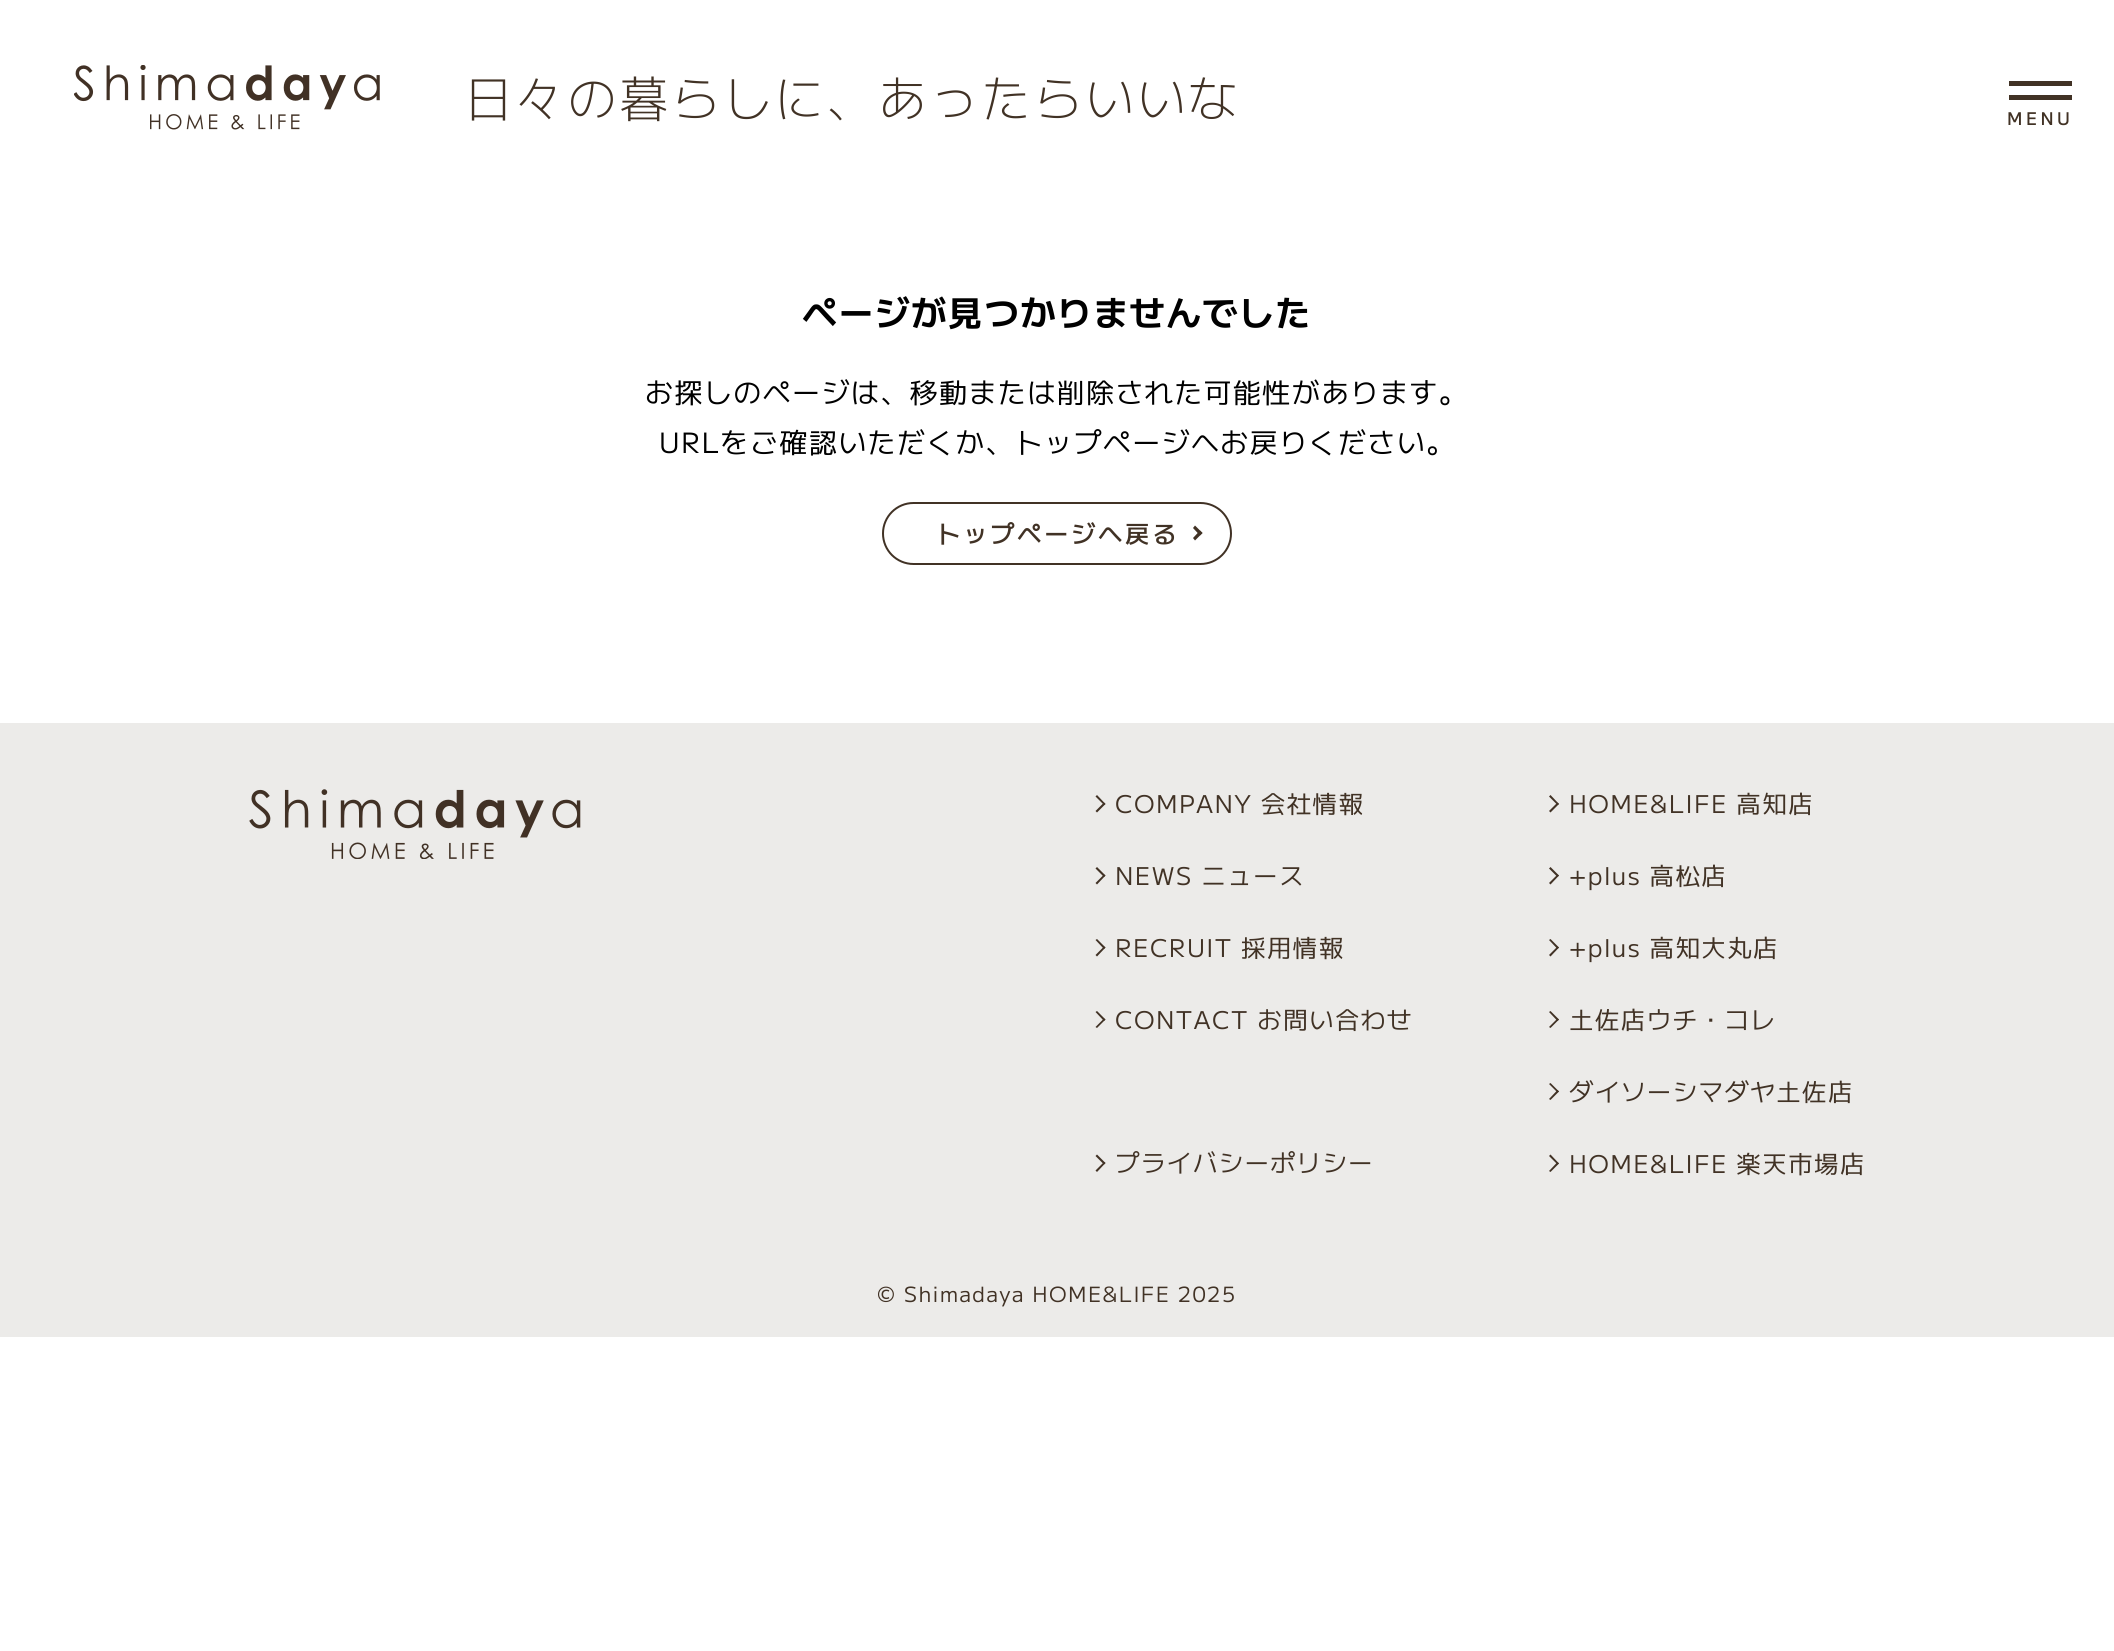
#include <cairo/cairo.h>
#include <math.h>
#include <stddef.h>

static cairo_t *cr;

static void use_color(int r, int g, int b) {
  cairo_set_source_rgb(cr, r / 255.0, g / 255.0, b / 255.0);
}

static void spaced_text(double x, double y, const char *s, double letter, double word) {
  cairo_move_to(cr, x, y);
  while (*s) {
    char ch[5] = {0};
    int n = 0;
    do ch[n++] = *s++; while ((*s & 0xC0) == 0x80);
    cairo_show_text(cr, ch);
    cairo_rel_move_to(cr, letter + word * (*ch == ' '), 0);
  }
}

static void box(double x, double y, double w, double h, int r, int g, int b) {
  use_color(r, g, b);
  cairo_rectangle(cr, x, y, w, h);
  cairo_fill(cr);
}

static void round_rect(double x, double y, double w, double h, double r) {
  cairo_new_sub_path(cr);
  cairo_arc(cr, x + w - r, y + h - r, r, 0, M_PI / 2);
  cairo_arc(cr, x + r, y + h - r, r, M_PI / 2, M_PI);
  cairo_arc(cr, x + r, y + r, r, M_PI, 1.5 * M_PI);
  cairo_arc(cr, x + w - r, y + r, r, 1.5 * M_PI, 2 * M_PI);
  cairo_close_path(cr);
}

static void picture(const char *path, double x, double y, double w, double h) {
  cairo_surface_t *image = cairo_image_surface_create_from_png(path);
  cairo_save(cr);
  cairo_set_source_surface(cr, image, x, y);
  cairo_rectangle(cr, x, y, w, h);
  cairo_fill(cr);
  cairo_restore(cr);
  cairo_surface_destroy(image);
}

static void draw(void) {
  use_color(255, 255, 255);
  cairo_paint(cr);
  picture("img_01.png", 74, 65, 306, 65);
  box(2009, 81, 63, 5, 65, 50, 37);
  box(2009, 95, 63, 5, 65, 50, 37);
  round_rect(883, 503, 348, 61, 30.5);
  cairo_stroke(cr);
  cairo_new_path(cr);
  cairo_move_to(cr, 1195, 525.5);
  cairo_line_to(cr, 1202.5, 533);
  cairo_line_to(cr, 1200, 535.5);
  cairo_line_to(cr, 1193, 528);
  cairo_close_path(cr);
  cairo_fill(cr);
  cairo_new_path(cr);
  cairo_move_to(cr, 1200, 530.5);
  cairo_line_to(cr, 1202.5, 533);
  cairo_line_to(cr, 1195, 540.5);
  cairo_line_to(cr, 1193, 538);
  cairo_close_path(cr);
  cairo_fill(cr);
  box(0, 723, 2114, 614, 236, 235, 233);
  picture("img_02.png", 249, 789, 332, 70);
  use_color(65, 50, 37);
  cairo_new_path(cr);
  cairo_move_to(cr, 1095.5, 796.5);
  cairo_line_to(cr, 1097, 795);
  cairo_line_to(cr, 1105.5, 804);
  cairo_line_to(cr, 1104, 805);
  cairo_close_path(cr);
  cairo_fill(cr);
  cairo_new_path(cr);
  cairo_move_to(cr, 1095.5, 811);
  cairo_line_to(cr, 1104, 802.5);
  cairo_line_to(cr, 1105.5, 804);
  cairo_line_to(cr, 1097, 812.5);
  cairo_close_path(cr);
  cairo_fill(cr);
  cairo_new_path(cr);
  cairo_move_to(cr, 1095.5, 868.5);
  cairo_line_to(cr, 1097, 867);
  cairo_line_to(cr, 1105.5, 875.5);
  cairo_line_to(cr, 1104, 877);
  cairo_close_path(cr);
  cairo_fill(cr);
  cairo_new_path(cr);
  cairo_move_to(cr, 1095.5, 883);
  cairo_line_to(cr, 1104, 874.5);
  cairo_line_to(cr, 1105.5, 875.5);
  cairo_line_to(cr, 1097, 884.5);
  cairo_close_path(cr);
  cairo_fill(cr);
  cairo_new_path(cr);
  cairo_move_to(cr, 1095.5, 940);
  cairo_line_to(cr, 1097, 939);
  cairo_line_to(cr, 1105.5, 947.5);
  cairo_line_to(cr, 1104, 949);
  cairo_close_path(cr);
  cairo_fill(cr);
  cairo_new_path(cr);
  cairo_move_to(cr, 1095.5, 955);
  cairo_line_to(cr, 1104, 946.5);
  cairo_line_to(cr, 1105.5, 947.5);
  cairo_line_to(cr, 1097, 956.5);
  cairo_close_path(cr);
  cairo_fill(cr);
  cairo_new_path(cr);
  cairo_move_to(cr, 1095.5, 1012);
  cairo_line_to(cr, 1097, 1011);
  cairo_line_to(cr, 1105.5, 1019.5);
  cairo_line_to(cr, 1104, 1021);
  cairo_close_path(cr);
  cairo_fill(cr);
  cairo_new_path(cr);
  cairo_move_to(cr, 1095.5, 1027);
  cairo_line_to(cr, 1104, 1018.5);
  cairo_line_to(cr, 1105.5, 1019.5);
  cairo_line_to(cr, 1097, 1028);
  cairo_close_path(cr);
  cairo_fill(cr);
  cairo_new_path(cr);
  cairo_move_to(cr, 1095.5, 1156);
  cairo_line_to(cr, 1097, 1154.5);
  cairo_line_to(cr, 1105.5, 1163);
  cairo_line_to(cr, 1104, 1164.5);
  cairo_close_path(cr);
  cairo_fill(cr);
  cairo_new_path(cr);
  cairo_move_to(cr, 1095.5, 1170.5);
  cairo_line_to(cr, 1104, 1162);
  cairo_line_to(cr, 1105.5, 1163);
  cairo_line_to(cr, 1097, 1172);
  cairo_close_path(cr);
  cairo_fill(cr);
  cairo_new_path(cr);
  cairo_move_to(cr, 1549, 796.5);
  cairo_line_to(cr, 1550.5, 795);
  cairo_line_to(cr, 1559, 804);
  cairo_line_to(cr, 1557.5, 805);
  cairo_close_path(cr);
  cairo_fill(cr);
  cairo_new_path(cr);
  cairo_move_to(cr, 1549, 811);
  cairo_line_to(cr, 1557.5, 802.5);
  cairo_line_to(cr, 1559, 804);
  cairo_line_to(cr, 1550.5, 812.5);
  cairo_close_path(cr);
  cairo_fill(cr);
  cairo_new_path(cr);
  cairo_move_to(cr, 1549, 868.5);
  cairo_line_to(cr, 1550.5, 867);
  cairo_line_to(cr, 1559, 875.5);
  cairo_line_to(cr, 1557.5, 877);
  cairo_close_path(cr);
  cairo_fill(cr);
  cairo_new_path(cr);
  cairo_move_to(cr, 1549, 883);
  cairo_line_to(cr, 1557.5, 874.5);
  cairo_line_to(cr, 1559, 875.5);
  cairo_line_to(cr, 1550.5, 884.5);
  cairo_close_path(cr);
  cairo_fill(cr);
  cairo_new_path(cr);
  cairo_move_to(cr, 1549, 940);
  cairo_line_to(cr, 1550.5, 939);
  cairo_line_to(cr, 1559, 947.5);
  cairo_line_to(cr, 1557.5, 949);
  cairo_close_path(cr);
  cairo_fill(cr);
  cairo_new_path(cr);
  cairo_move_to(cr, 1549, 955);
  cairo_line_to(cr, 1557.5, 946.5);
  cairo_line_to(cr, 1559, 947.5);
  cairo_line_to(cr, 1550.5, 956.5);
  cairo_close_path(cr);
  cairo_fill(cr);
  cairo_new_path(cr);
  cairo_move_to(cr, 1549, 1012);
  cairo_line_to(cr, 1550.5, 1011);
  cairo_line_to(cr, 1559, 1019.5);
  cairo_line_to(cr, 1557.5, 1021);
  cairo_close_path(cr);
  cairo_fill(cr);
  cairo_new_path(cr);
  cairo_move_to(cr, 1549, 1027);
  cairo_line_to(cr, 1557.5, 1018.5);
  cairo_line_to(cr, 1559, 1019.5);
  cairo_line_to(cr, 1550.5, 1028);
  cairo_close_path(cr);
  cairo_fill(cr);
  cairo_new_path(cr);
  cairo_move_to(cr, 1549, 1084);
  cairo_line_to(cr, 1550.5, 1083);
  cairo_line_to(cr, 1559, 1091.5);
  cairo_line_to(cr, 1557.5, 1092.5);
  cairo_close_path(cr);
  cairo_fill(cr);
  cairo_new_path(cr);
  cairo_move_to(cr, 1549, 1099);
  cairo_line_to(cr, 1557.5, 1090);
  cairo_line_to(cr, 1559, 1091.5);
  cairo_line_to(cr, 1550.5, 1100);
  cairo_close_path(cr);
  cairo_fill(cr);
  cairo_new_path(cr);
  cairo_move_to(cr, 1549, 1156);
  cairo_line_to(cr, 1550.5, 1154.5);
  cairo_line_to(cr, 1559, 1163.5);
  cairo_line_to(cr, 1557.5, 1164.5);
  cairo_close_path(cr);
  cairo_fill(cr);
  cairo_new_path(cr);
  cairo_move_to(cr, 1549, 1171);
  cairo_line_to(cr, 1557.5, 1162);
  cairo_line_to(cr, 1559, 1163.5);
  cairo_line_to(cr, 1550.5, 1172);
  cairo_close_path(cr);
  cairo_fill(cr);
  cairo_select_font_face(cr, "M PLUS 1 Light", CAIRO_FONT_SLANT_NORMAL, CAIRO_FONT_WEIGHT_NORMAL);
  cairo_set_font_size(cr, 49);
  spaced_text(464, 117, "日々の暮らしに、あったらいいな", 2.75, 0);
  cairo_select_font_face(cr, "M PLUS 1 Medium", CAIRO_FONT_SLANT_NORMAL, CAIRO_FONT_WEIGHT_NORMAL);
  cairo_set_font_size(cr, 17.5);
  spaced_text(2007, 125, "MENU", 3.5, 0);
  cairo_select_font_face(cr, "M PLUS 1", CAIRO_FONT_SLANT_NORMAL, CAIRO_FONT_WEIGHT_BOLD);
  cairo_set_font_size(cr, 35);
  use_color(0, 0, 0);
  spaced_text(802, 326, "ページが見つかりませんでした", 1.4, 0);
  cairo_select_font_face(cr, "M PLUS 1", CAIRO_FONT_SLANT_NORMAL, CAIRO_FONT_WEIGHT_NORMAL);
  cairo_set_font_size(cr, 28);
  spaced_text(645, 403, "お探しのページは、移動または削除された可能性があります。", 1.4, 0);
  spaced_text(659, 453, "URLをご確認いただくか、トップページへお戻りください。", 1.4, 0);
  cairo_select_font_face(cr, "M PLUS 1 Medium", CAIRO_FONT_SLANT_NORMAL, CAIRO_FONT_WEIGHT_NORMAL);
  cairo_set_font_size(cr, 24.5);
  use_color(65, 50, 37);
  spaced_text(936, 543, "トップページへ戻る", 2.5, 0);
  cairo_select_font_face(cr, "M PLUS 1", CAIRO_FONT_SLANT_NORMAL, CAIRO_FONT_WEIGHT_NORMAL);
  spaced_text(1115, 813, "COMPANY 会社情報", 1.4, 0);
  spaced_text(1115, 885, "NEWS ニュース", 1.4, 0);
  spaced_text(1115, 957, "RECRUIT 採用情報", 1.4, 0);
  spaced_text(1115, 1029, "CONTACT お問い合わせ", 1.4, 0);
  spaced_text(1115, 1172, "プライバシーポリシー", 1.4, 0);
  spaced_text(1569, 813, "HOME&LIFE 高知店", 1.4, 0);
  spaced_text(1569, 885, "+plus 高松店", 1.4, 0);
  spaced_text(1569, 957, "+plus 高知大丸店", 1.4, 0);
  spaced_text(1569, 1029, "土佐店ウチ・コレ", 1.4, 0);
  spaced_text(1569, 1101, "ダイソーシマダヤ土佐店", 1.4, 0);
  spaced_text(1569, 1173, "HOME&LIFE 楽天市場店", 1.4, 0);
  cairo_set_font_size(cr, 21);
  spaced_text(877, 1302, "© Shimadaya HOME&LIFE 2025", 1.4, 0);
}

int main(void) {
  cairo_surface_t *surface = cairo_image_surface_create(CAIRO_FORMAT_RGB24, 2114, 1651);
  cr = cairo_create(surface);
  cairo_font_options_t *options = cairo_font_options_create();
  cairo_font_options_set_hint_metrics(options, CAIRO_HINT_METRICS_OFF);
  cairo_font_options_set_hint_style(options, CAIRO_HINT_STYLE_NONE);
  cairo_set_font_options(cr, options);
  cairo_set_miter_limit(cr, 4);
  draw();
  cairo_surface_write_to_png(surface, "out.png");
  cairo_font_options_destroy(options);
  cairo_destroy(cr);
  cairo_surface_destroy(surface);
  return 0;
}
